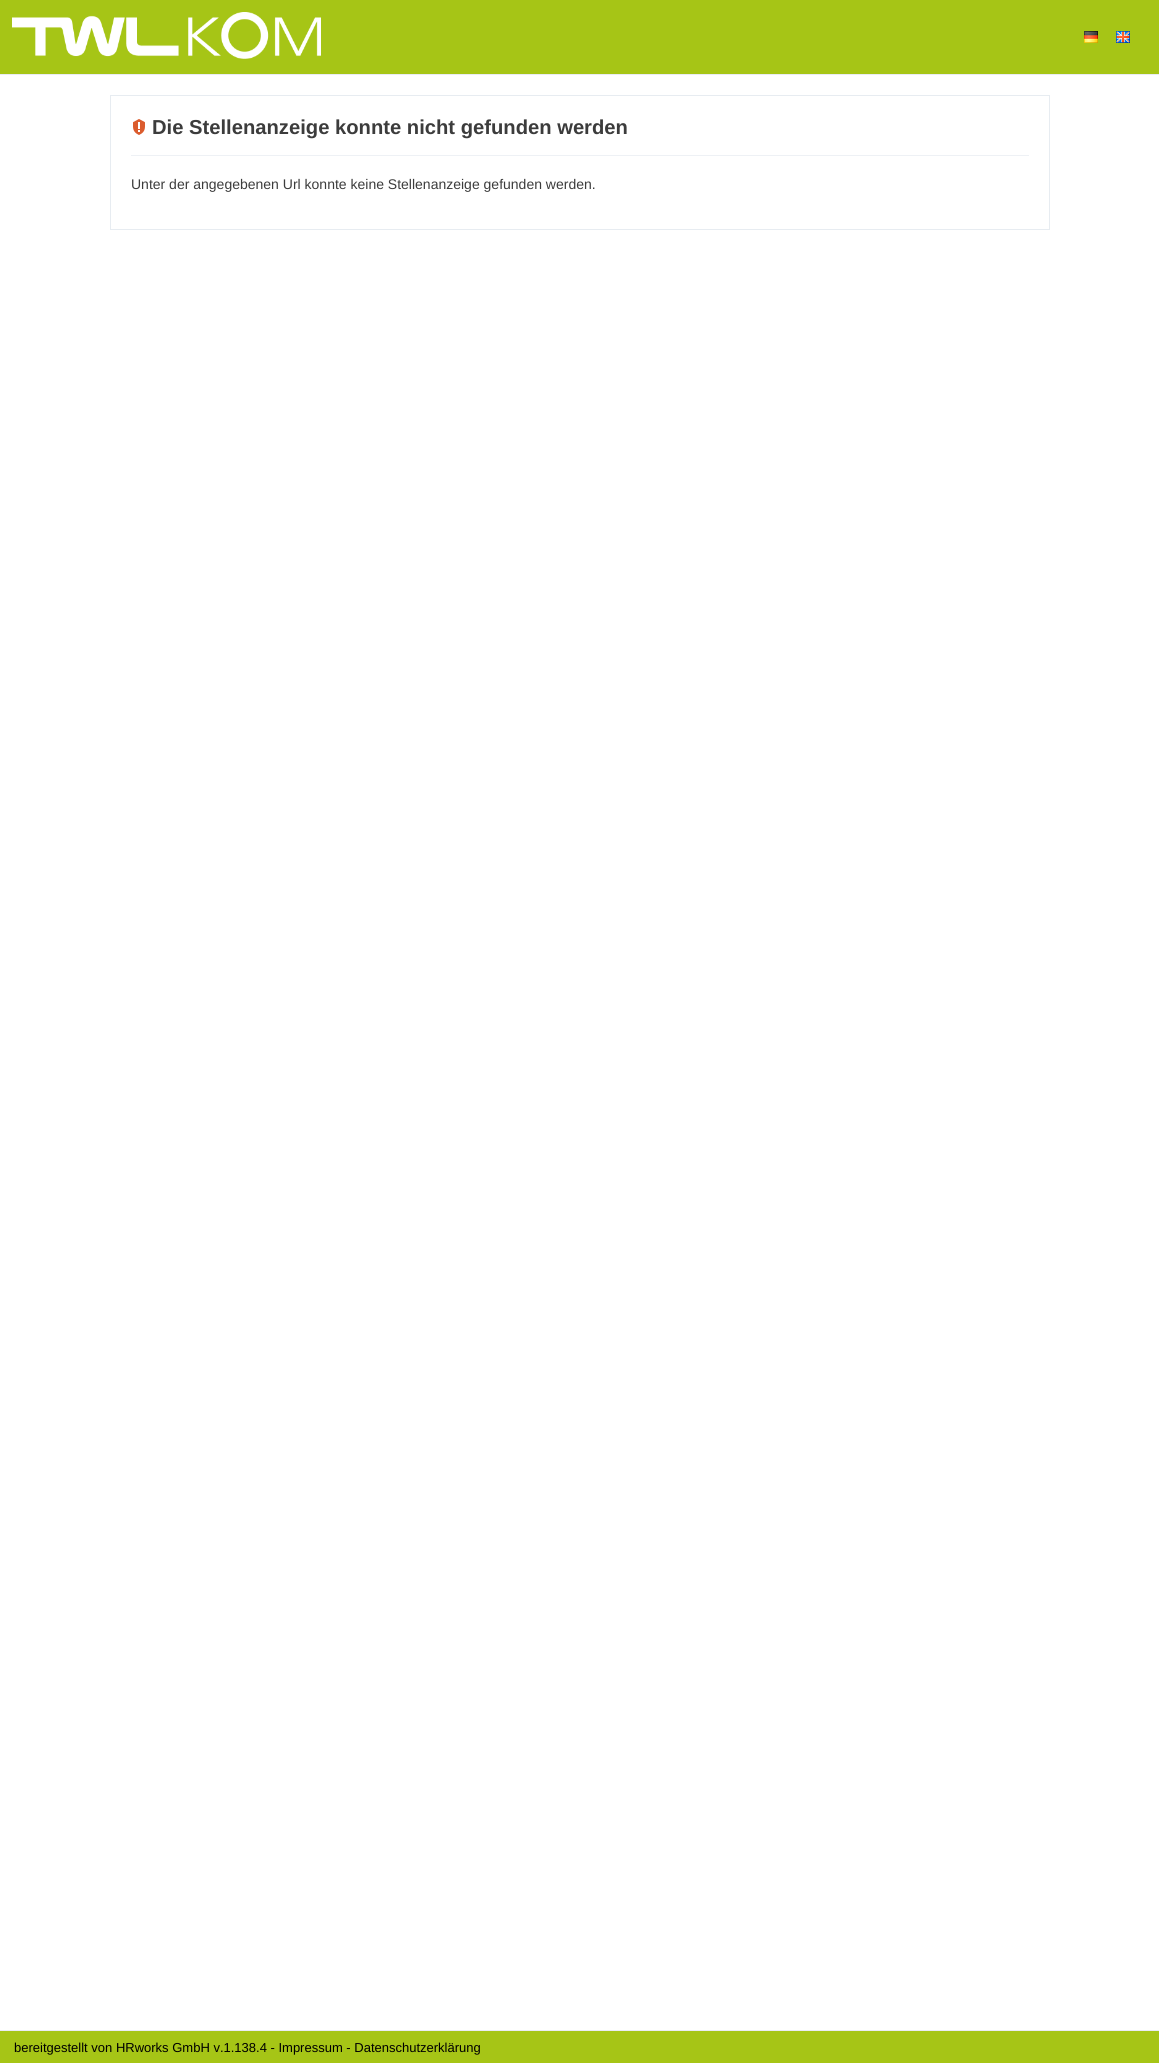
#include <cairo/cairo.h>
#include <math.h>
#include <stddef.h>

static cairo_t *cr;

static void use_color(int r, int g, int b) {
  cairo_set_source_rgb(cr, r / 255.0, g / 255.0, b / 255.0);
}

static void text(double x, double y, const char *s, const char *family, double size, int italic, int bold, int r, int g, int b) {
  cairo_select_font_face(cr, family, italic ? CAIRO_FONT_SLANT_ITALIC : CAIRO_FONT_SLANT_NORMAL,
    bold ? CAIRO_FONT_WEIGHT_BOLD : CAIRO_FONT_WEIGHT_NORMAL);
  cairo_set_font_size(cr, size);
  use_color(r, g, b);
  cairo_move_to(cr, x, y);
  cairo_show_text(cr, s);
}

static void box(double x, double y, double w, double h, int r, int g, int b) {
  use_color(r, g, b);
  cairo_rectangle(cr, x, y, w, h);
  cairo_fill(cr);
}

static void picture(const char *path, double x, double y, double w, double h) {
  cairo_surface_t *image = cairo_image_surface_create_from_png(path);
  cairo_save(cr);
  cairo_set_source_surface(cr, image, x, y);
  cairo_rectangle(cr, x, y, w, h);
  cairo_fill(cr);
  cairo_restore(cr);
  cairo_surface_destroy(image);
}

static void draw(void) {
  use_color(255, 255, 255);
  cairo_paint(cr);
  box(0, 0, 1159, 74, 166, 197, 22);
  box(0, 74, 1159, 1, 233, 236, 243);
  picture("img_01.png", 12, 12, 309, 47);
  picture("img_02.png", 1084, 31, 14, 12);
  picture("img_03.png", 1116, 31, 14, 12);
  cairo_rectangle(cr, 110.5, 95.5, 939, 134);
  use_color(231, 236, 241);
  cairo_set_line_width(cr, 1);
  cairo_stroke(cr);
  box(131, 155, 898, 1, 238, 241, 245);
  picture("img_04.png", 133, 119, 12, 16);
  box(0, 2031, 1159, 32, 166, 197, 22);
  box(0, 2030, 1159, 1, 233, 236, 243);
  text(152, 134, "Die Stellenanzeige konnte nicht gefunden werden", "Liberation Sans", 20.2, 0, 1, 60, 60, 60);
  text(131, 189, "Unter der angegebenen Url konnte keine Stellenanzeige gefunden werden.", "Liberation Sans", 14, 0, 0, 60, 60, 60);
  text(14, 2052, "bereitgestellt von HRworks GmbH v.1.138.4 - Impressum - Datenschutzerklärung", "Liberation Sans", 13, 0, 0, 0, 0, 0);
}

int main(void) {
  cairo_surface_t *surface = cairo_image_surface_create(CAIRO_FORMAT_RGB24, 1159, 2063);
  cr = cairo_create(surface);
  cairo_font_options_t *options = cairo_font_options_create();
  cairo_font_options_set_hint_metrics(options, CAIRO_HINT_METRICS_OFF);
  cairo_font_options_set_hint_style(options, CAIRO_HINT_STYLE_NONE);
  cairo_set_font_options(cr, options);
  cairo_set_miter_limit(cr, 4);
  draw();
  cairo_surface_write_to_png(surface, "out.png");
  cairo_font_options_destroy(options);
  cairo_destroy(cr);
  cairo_surface_destroy(surface);
  return 0;
}
